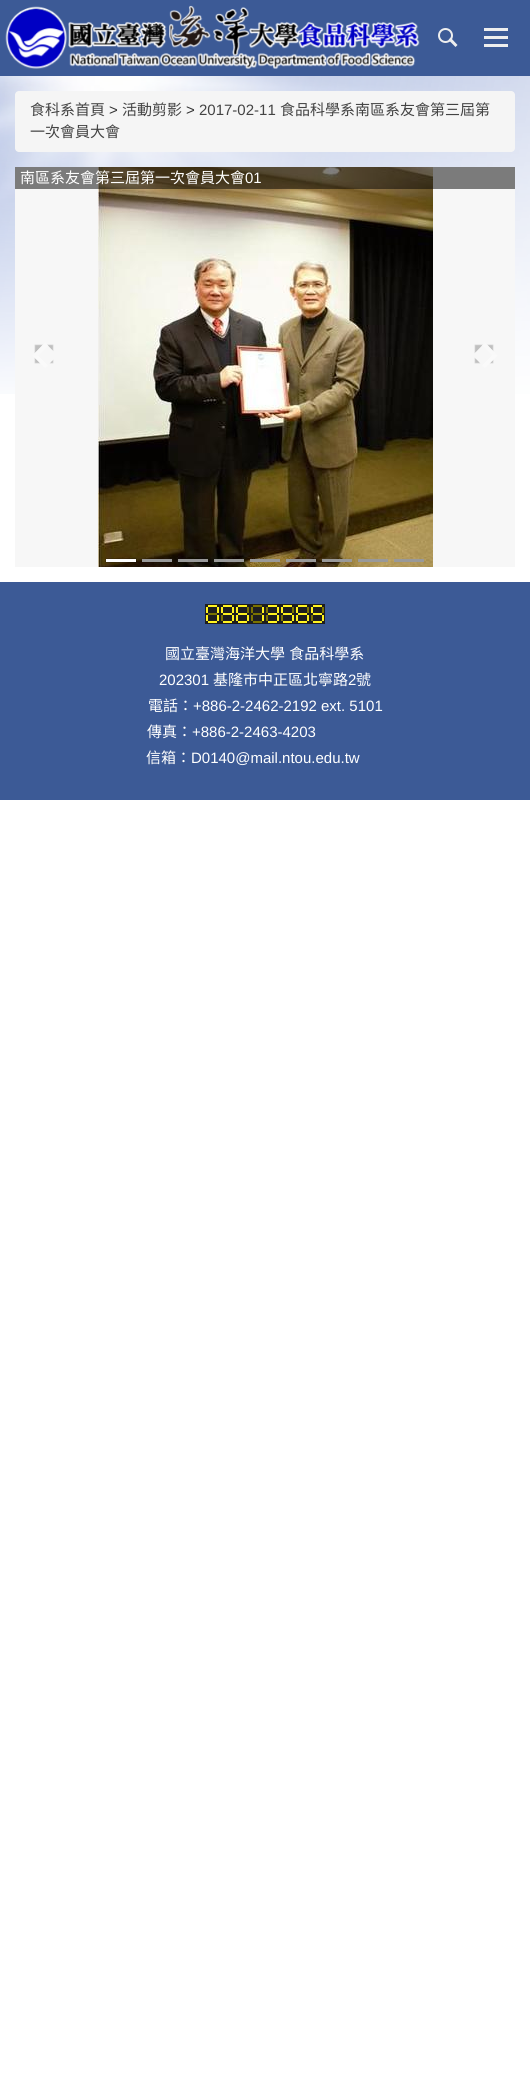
#include <cairo/cairo.h>
#include <math.h>
#include <stddef.h>

static cairo_t *cr;

static void use_color(int r, int g, int b) {
  cairo_set_source_rgb(cr, r / 255.0, g / 255.0, b / 255.0);
}

static void text(double x, double y, const char *s, const char *family, double size, int italic, int bold, int r, int g, int b) {
  cairo_select_font_face(cr, family, italic ? CAIRO_FONT_SLANT_ITALIC : CAIRO_FONT_SLANT_NORMAL,
    bold ? CAIRO_FONT_WEIGHT_BOLD : CAIRO_FONT_WEIGHT_NORMAL);
  cairo_set_font_size(cr, size);
  use_color(r, g, b);
  cairo_move_to(cr, x, y);
  cairo_show_text(cr, s);
}

static void spaced_text(double x, double y, const char *s, double letter, double word) {
  cairo_move_to(cr, x, y);
  while (*s) {
    char ch[5] = {0};
    int n = 0;
    do ch[n++] = *s++; while ((*s & 0xC0) == 0x80);
    cairo_show_text(cr, ch);
    cairo_rel_move_to(cr, letter + word * (*ch == ' '), 0);
  }
}

static void box(double x, double y, double w, double h, int r, int g, int b) {
  use_color(r, g, b);
  cairo_rectangle(cr, x, y, w, h);
  cairo_fill(cr);
}

static void round_rect(double x, double y, double w, double h, double r) {
  cairo_new_sub_path(cr);
  cairo_arc(cr, x + w - r, y + h - r, r, 0, M_PI / 2);
  cairo_arc(cr, x + r, y + h - r, r, M_PI / 2, M_PI);
  cairo_arc(cr, x + r, y + r, r, M_PI, 1.5 * M_PI);
  cairo_arc(cr, x + w - r, y + r, r, 1.5 * M_PI, 2 * M_PI);
  cairo_close_path(cr);
}

static void shadow(double x, double y, double w, double h, double r, double blur, double alpha) {
  cairo_push_group_with_content(cr, CAIRO_CONTENT_ALPHA);
  cairo_set_operator(cr, CAIRO_OPERATOR_SOURCE);
  for (int i = 15; i >= -15 && fmin(w, h) + blur * i / 3 > 0; i -= 2) {
    double e = blur * i / 6;
    cairo_set_source_rgba(cr, 0, 0, 0, alpha * erfc((i - 1) / 8.5) / 2);
    round_rect(x - e, y - e, w + 2 * e, h + 2 * e, fmax(0, fmin(r + e + blur * .6, fmin(w, h) / 2 + e)));
    cairo_fill(cr);
  }
  cairo_pattern_t *soft = cairo_pop_group(cr);
  cairo_mask(cr, soft);
  cairo_pattern_destroy(soft);
}

static void picture(const char *path, double x, double y, double w, double h) {
  cairo_surface_t *image = cairo_image_surface_create_from_png(path);
  cairo_save(cr);
  cairo_set_source_surface(cr, image, x, y);
  cairo_rectangle(cr, x, y, w, h);
  cairo_fill(cr);
  cairo_restore(cr);
  cairo_surface_destroy(image);
}

static void draw(void) {
  use_color(255, 255, 255);
  cairo_paint(cr);
  picture("img_01.png", 0, 76, 530, 318);
  box(0, 0, 530, 76, 60, 90, 150);
  picture("img_02.png", 5, 5, 415, 64);
  cairo_arc(cr, 445.5, 35.5, 6.5, 0, 2 * M_PI);
  use_color(238, 238, 238);
  cairo_stroke(cr);
  cairo_new_path(cr);
  cairo_move_to(cr, 450.5, 37.5);
  cairo_line_to(cr, 457.5, 45);
  cairo_line_to(cr, 455.5, 47);
  cairo_line_to(cr, 448.5, 40);
  cairo_close_path(cr);
  cairo_fill(cr);
  box(484, 36, 24, 3, 238, 238, 238);
  box(484, 28, 24, 3, 238, 238, 238);
  box(484, 44, 24, 3, 238, 238, 238);
  use_color(245, 245, 245);
  round_rect(15, 91, 500, 61, 4);
  cairo_fill(cr);
  box(15, 167, 500, 400, 247, 247, 247);
  picture("img_03.png", 98, 167, 335, 400);
  cairo_set_source_rgba(cr, 0, 0, 0, 0.5);
  cairo_rectangle(cr, 15, 167, 500, 22);
  cairo_fill(cr);
  cairo_save(cr);
  cairo_set_fill_rule(cr, CAIRO_FILL_RULE_EVEN_ODD);
  cairo_new_path(cr);
  cairo_move_to(cr, 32, 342);
  cairo_line_to(cr, 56, 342);
  cairo_line_to(cr, 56, 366);
  cairo_line_to(cr, 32, 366);
  cairo_close_path(cr);
  cairo_move_to(cr, 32.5, 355.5);
  cairo_line_to(cr, 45, 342.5);
  cairo_line_to(cr, 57.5, 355.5);
  cairo_line_to(cr, 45, 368);
  cairo_close_path(cr);
  cairo_clip(cr);
  use_color(62, 62, 62);
  shadow(35, 345, 18, 18, 0, 0.5, 0.3);
  cairo_restore(cr);
  cairo_set_source_rgba(cr, 0.992, 0.992, 0.992, 0.5);
  cairo_new_path(cr);
  cairo_move_to(cr, 32.5, 355.5);
  cairo_line_to(cr, 45, 342.5);
  cairo_line_to(cr, 48, 345.5);
  cairo_line_to(cr, 38, 355.5);
  cairo_close_path(cr);
  cairo_fill(cr);
  use_color(250, 250, 250);
  cairo_new_path(cr);
  cairo_move_to(cr, 45, 368);
  cairo_line_to(cr, 32.5, 355.5);
  cairo_line_to(cr, 38, 355.5);
  cairo_line_to(cr, 48, 365.5);
  cairo_close_path(cr);
  cairo_fill(cr);
  cairo_save(cr);
  cairo_set_fill_rule(cr, CAIRO_FILL_RULE_EVEN_ODD);
  cairo_new_path(cr);
  cairo_move_to(cr, 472, 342);
  cairo_line_to(cr, 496, 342);
  cairo_line_to(cr, 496, 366);
  cairo_line_to(cr, 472, 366);
  cairo_close_path(cr);
  cairo_move_to(cr, 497.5, 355.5);
  cairo_line_to(cr, 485, 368);
  cairo_line_to(cr, 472.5, 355.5);
  cairo_line_to(cr, 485, 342.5);
  cairo_close_path(cr);
  cairo_clip(cr);
  use_color(62, 62, 62);
  shadow(475, 345, 18, 18, 0, 0.5, 0.3);
  cairo_restore(cr);
  cairo_new_path(cr);
  cairo_move_to(cr, 497.5, 355.5);
  cairo_line_to(cr, 485, 368);
  cairo_line_to(cr, 482, 365.5);
  cairo_line_to(cr, 492, 355.5);
  cairo_close_path(cr);
  cairo_fill(cr);
  cairo_set_source_rgba(cr, 0.992, 0.992, 0.992, 0.5);
  cairo_new_path(cr);
  cairo_move_to(cr, 485, 342.5);
  cairo_line_to(cr, 497.5, 355.5);
  cairo_line_to(cr, 492, 355.5);
  cairo_line_to(cr, 482, 345.5);
  cairo_close_path(cr);
  cairo_fill(cr);
  use_color(0, 0, 0);
  shadow(106, 559, 30, 3, 0, 0.5, 0.7);
  box(106, 559, 30, 3, 255, 255, 255);
  box(142, 559, 30, 3, 153, 153, 153);
  box(178, 559, 30, 3, 153, 153, 153);
  box(214, 559, 30, 3, 153, 153, 153);
  box(250, 559, 30, 3, 153, 153, 153);
  box(286, 559, 30, 3, 153, 153, 153);
  box(322, 559, 30, 3, 153, 153, 153);
  box(358, 559, 30, 3, 153, 153, 153);
  box(394, 559, 30, 3, 153, 153, 153);
  box(0, 582, 530, 218, 60, 90, 150);
  picture("img_04.png", 205, 604, 15, 20);
  picture("img_05.png", 220, 604, 15, 20);
  picture("img_06.png", 235, 604, 15, 20);
  picture("img_07.png", 250, 604, 15, 20);
  picture("img_08.png", 265, 604, 15, 20);
  picture("img_09.png", 280, 604, 15, 20);
  picture("img_06.png", 295, 604, 15, 20);
  picture("img_09.png", 310, 604, 15, 20);
  text(30, 115, "食科系首頁", "Noto Sans CJK TC", 15, 0, 0, 67, 67, 67);
  text(109, 115, ">", "Liberation Sans", 15, 0, 0, 51, 51, 51);
  text(122, 115, "活動剪影", "Noto Sans CJK TC", 15, 0, 0, 67, 67, 67);
  text(186, 115, ">", "Liberation Sans", 15, 0, 0, 51, 51, 51);
  text(199, 115, "2017-02-11", "Liberation Sans", 15, 0, 0, 67, 67, 67);
  text(280, 115, "食品科學系南區系友會第三屆第", "Noto Sans CJK TC", 15, 0, 0, 67, 67, 67);
  text(30, 137, "一次會員大會", "Noto Sans CJK TC", 15, 0, 0, 67, 67, 67);
  text(20, 183, "南區系友會第三屆第一次會員大會", "Noto Sans CJK TC", 15, 0, 0, 255, 255, 255);
  text(245, 183, "01", "Liberation Sans", 15, 0, 0, 255, 255, 255);
  cairo_select_font_face(cr, "Noto Sans CJK TC", CAIRO_FONT_SLANT_NORMAL, CAIRO_FONT_WEIGHT_NORMAL);
  spaced_text(165, 659, "國立臺灣海洋大學 食品科學系", 0, 1);
  text(159, 685, "202301", "Liberation Sans", 15, 0, 0, 255, 255, 255);
  text(213, 685, "基隆市中正區北寧路", "Noto Sans CJK TC", 15, 0, 0, 255, 255, 255);
  text(348, 685, "2", "Liberation Sans", 15, 0, 0, 255, 255, 255);
  text(356, 685, "號", "Noto Sans CJK TC", 15, 0, 0, 255, 255, 255);
  text(148, 711, "電話：", "Noto Sans CJK TC", 15, 0, 0, 255, 255, 255);
  text(193, 711, "+886-2-2462-2192 ext. 5101", "Liberation Sans", 15, 0, 0, 255, 255, 255);
  text(147, 737, "傳真：", "Noto Sans CJK TC", 15, 0, 0, 255, 255, 255);
  text(192, 737, "+886-2-2463-4203", "Liberation Sans", 15, 0, 0, 255, 255, 255);
  text(146, 763, "信箱：", "Noto Sans CJK TC", 15, 0, 0, 255, 255, 255);
  text(191, 763, "D0140@mail.ntou.edu.tw", "Liberation Sans", 15, 0, 0, 255, 255, 255);
}

int main(void) {
  cairo_surface_t *surface = cairo_image_surface_create(CAIRO_FORMAT_RGB24, 530, 2081);
  cr = cairo_create(surface);
  cairo_font_options_t *options = cairo_font_options_create();
  cairo_font_options_set_hint_metrics(options, CAIRO_HINT_METRICS_OFF);
  cairo_font_options_set_hint_style(options, CAIRO_HINT_STYLE_NONE);
  cairo_set_font_options(cr, options);
  cairo_set_miter_limit(cr, 4);
  draw();
  cairo_surface_write_to_png(surface, "out.png");
  cairo_font_options_destroy(options);
  cairo_destroy(cr);
  cairo_surface_destroy(surface);
  return 0;
}
